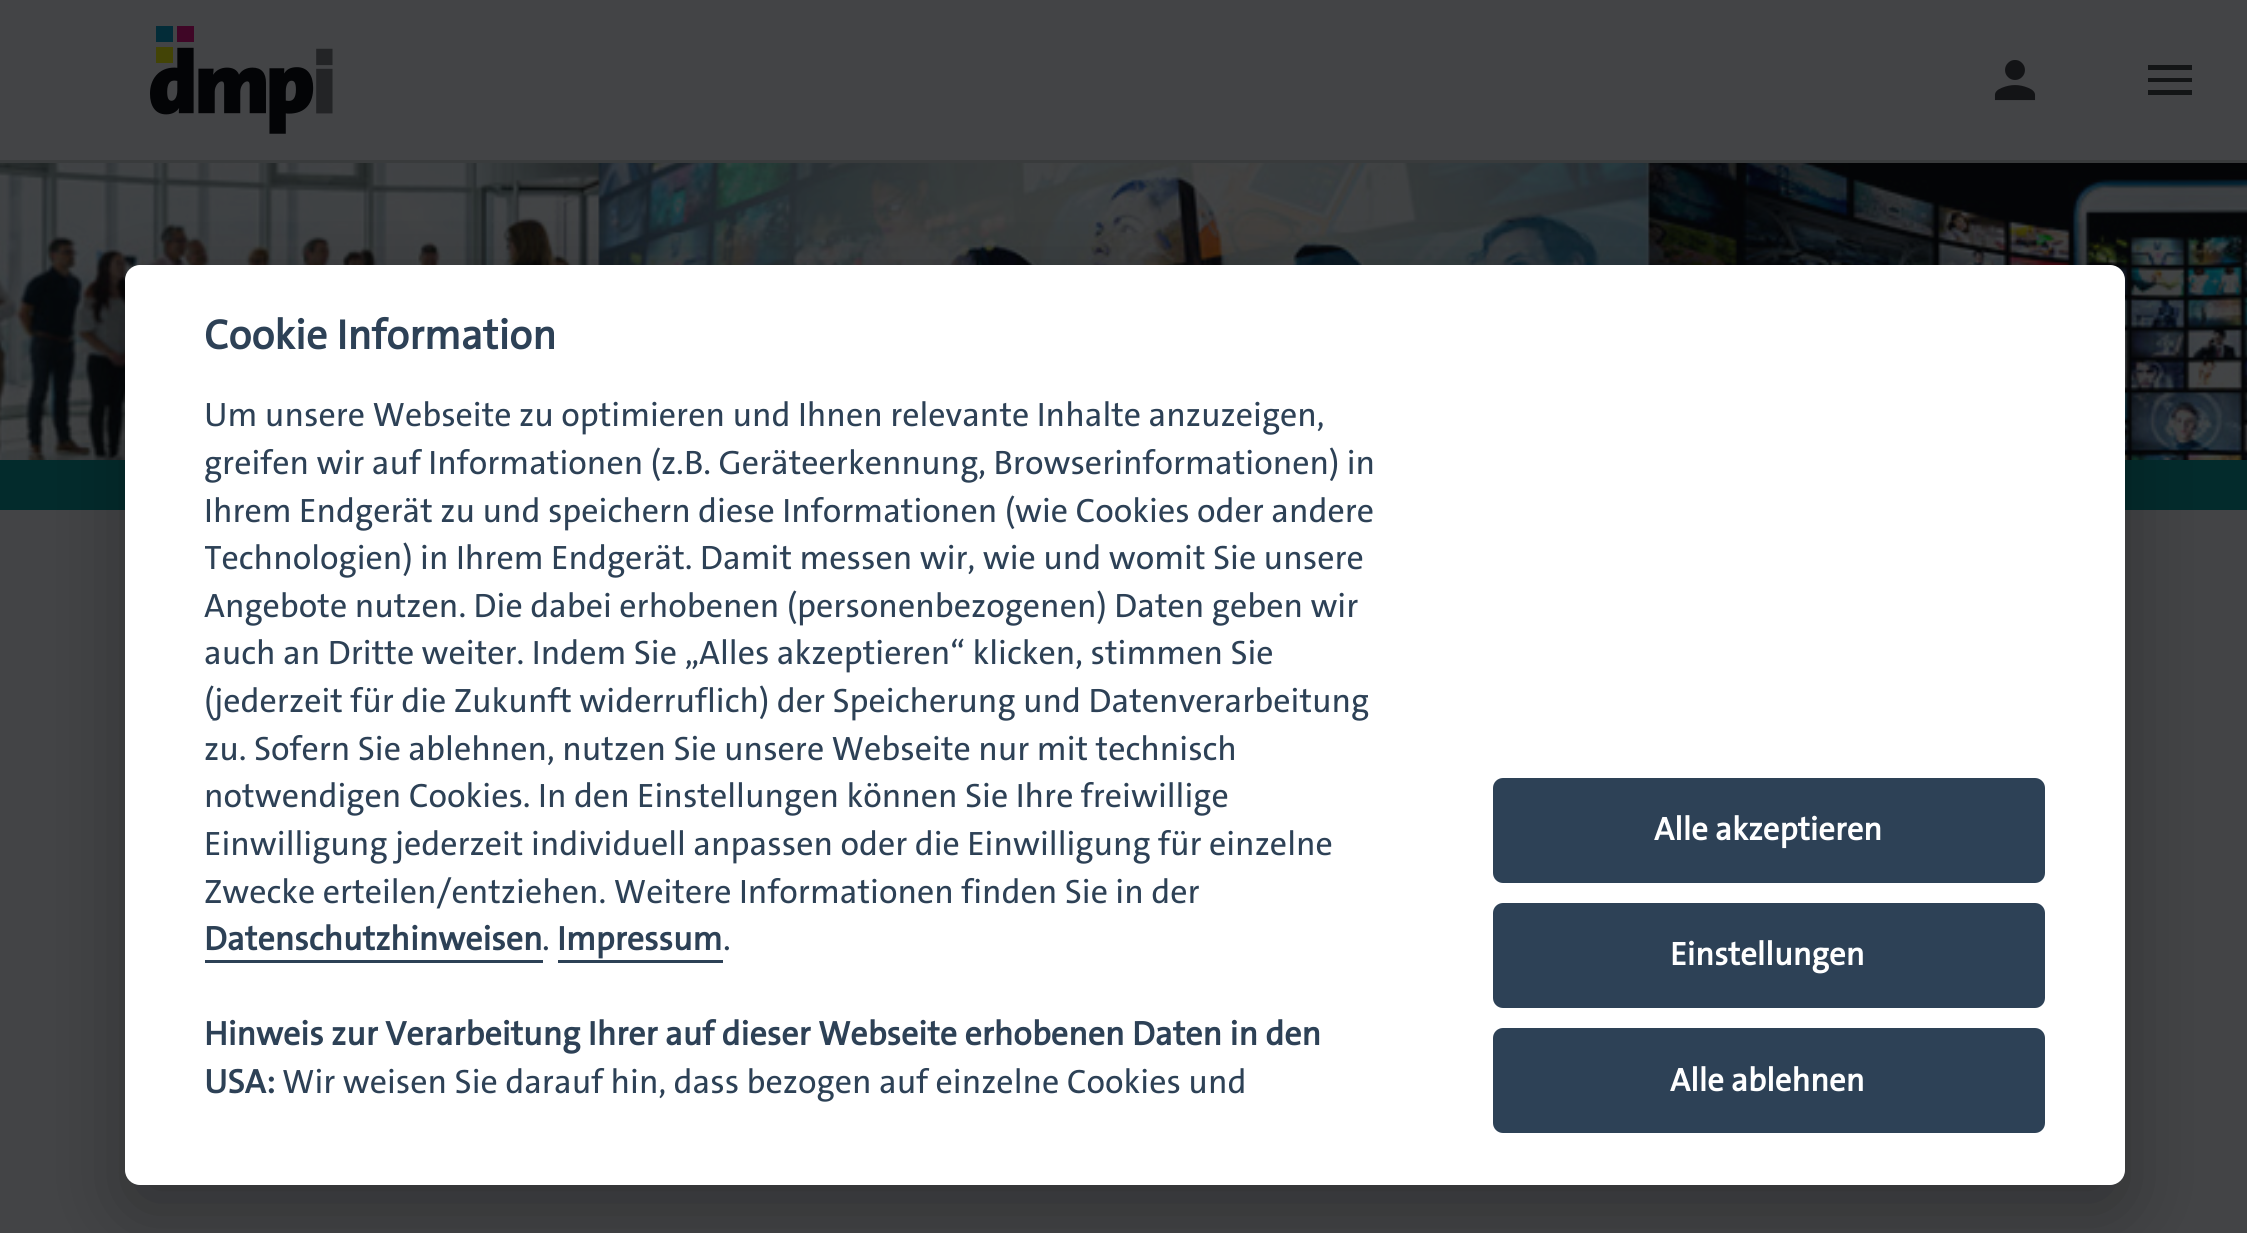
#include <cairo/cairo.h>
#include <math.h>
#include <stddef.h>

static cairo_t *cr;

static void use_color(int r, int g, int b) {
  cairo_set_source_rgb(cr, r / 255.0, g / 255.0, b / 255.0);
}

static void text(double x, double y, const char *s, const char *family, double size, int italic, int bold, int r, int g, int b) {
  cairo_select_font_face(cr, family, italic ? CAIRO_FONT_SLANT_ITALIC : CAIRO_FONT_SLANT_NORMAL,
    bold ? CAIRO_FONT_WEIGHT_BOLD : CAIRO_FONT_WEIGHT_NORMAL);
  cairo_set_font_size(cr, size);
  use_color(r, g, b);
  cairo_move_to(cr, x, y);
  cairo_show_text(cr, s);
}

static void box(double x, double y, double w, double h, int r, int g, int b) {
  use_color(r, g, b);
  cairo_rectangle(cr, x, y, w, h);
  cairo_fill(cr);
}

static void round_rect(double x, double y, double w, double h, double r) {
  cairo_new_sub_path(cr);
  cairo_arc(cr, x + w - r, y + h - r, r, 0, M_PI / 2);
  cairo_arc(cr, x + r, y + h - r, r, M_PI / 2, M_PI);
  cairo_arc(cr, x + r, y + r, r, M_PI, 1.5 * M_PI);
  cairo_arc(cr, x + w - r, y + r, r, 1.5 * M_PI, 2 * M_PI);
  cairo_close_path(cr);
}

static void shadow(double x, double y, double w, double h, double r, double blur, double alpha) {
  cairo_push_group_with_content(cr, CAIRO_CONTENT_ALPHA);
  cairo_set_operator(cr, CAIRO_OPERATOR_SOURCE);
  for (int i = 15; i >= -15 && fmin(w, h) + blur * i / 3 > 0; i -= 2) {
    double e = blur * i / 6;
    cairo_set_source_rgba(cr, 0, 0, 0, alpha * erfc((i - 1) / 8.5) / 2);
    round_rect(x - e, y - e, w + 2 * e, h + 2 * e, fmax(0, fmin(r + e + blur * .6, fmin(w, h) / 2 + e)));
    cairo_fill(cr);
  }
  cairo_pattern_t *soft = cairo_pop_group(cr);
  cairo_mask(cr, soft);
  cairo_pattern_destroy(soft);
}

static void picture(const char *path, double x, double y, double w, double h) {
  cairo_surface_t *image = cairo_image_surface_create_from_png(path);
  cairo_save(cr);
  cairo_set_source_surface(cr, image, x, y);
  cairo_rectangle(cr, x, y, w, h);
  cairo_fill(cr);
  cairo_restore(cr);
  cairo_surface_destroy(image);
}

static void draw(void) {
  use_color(67, 68, 70);
  cairo_paint(cr);
  box(0, 160, 2247, 3, 57, 59, 60);
  picture("img_01.png", 150, 26, 183, 108);
  picture("img_02.png", 1994, 60, 42, 41);
  use_color(19, 21, 22);
  cairo_new_path(cr);
  cairo_move_to(cr, 2148, 65);
  cairo_line_to(cr, 2192, 65);
  cairo_line_to(cr, 2192, 70);
  cairo_line_to(cr, 2148, 70);
  cairo_close_path(cr);
  cairo_move_to(cr, 2148, 82);
  cairo_line_to(cr, 2148, 78);
  cairo_line_to(cr, 2192, 78);
  cairo_line_to(cr, 2192, 82);
  cairo_close_path(cr);
  cairo_move_to(cr, 2148, 95);
  cairo_line_to(cr, 2148, 90);
  cairo_line_to(cr, 2192, 90);
  cairo_line_to(cr, 2192, 95);
  cairo_close_path(cr);
  cairo_fill(cr);
  box(0, 460, 2247, 50, 3, 43, 44);
  picture("img_03.png", 0, 163, 2247, 297);
  use_color(2, 2, 3);
  shadow(125, 290, 2000, 920, 15, 37.5, 0.28);
  use_color(255, 255, 255);
  round_rect(125, 265, 2000, 920, 15);
  cairo_fill(cr);
  box(205, 960, 338, 3, 45, 65, 86);
  box(558, 960, 165, 3, 45, 65, 86);
  round_rect(1493, 778, 552, 105, 10);
  cairo_fill(cr);
  round_rect(1493, 903, 552, 105, 10);
  cairo_fill(cr);
  round_rect(1493, 1028, 552, 105, 10);
  cairo_fill(cr);
  text(204, 349, "Cookie Information", "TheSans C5", 42, 0, 1, 45, 65, 86);
  text(204, 426, "Um unsere Webseite zu optimieren und Ihnen relevante Inhalte anzuzeigen,", "TheSans C5 Medium", 34, 0, 0, 45, 65, 86);
  text(204, 474, "greifen wir auf Informationen (z.B. Geräteerkennung, Browserinformationen) in", "TheSans C5 Medium", 34, 0, 0, 45, 65, 86);
  text(204, 522, "Ihrem Endgerät zu und speichern diese Informationen (wie Cookies oder andere", "TheSans C5 Medium", 34, 0, 0, 45, 65, 86);
  cairo_save(cr);
  cairo_rectangle(cr, 205, 318, 1190, 815);
  cairo_clip(cr);
  text(204, 569, "Technologien) in Ihrem Endgerät. Damit messen wir, wie und womit Sie unsere", "TheSans C5 Medium", 34, 0, 0, 45, 65, 86);
  cairo_restore(cr);
  text(204, 617, "Angebote nutzen. Die dabei erhobenen (personenbezogenen) Daten geben wir", "TheSans C5 Medium", 34, 0, 0, 45, 65, 86);
  text(204, 664, "auch an Dritte weiter. Indem Sie „Alles akzeptieren“ klicken, stimmen Sie", "TheSans C5 Medium", 34, 0, 0, 45, 65, 86);
  text(204, 712, "(jederzeit für die Zukunft widerruflich) der Speicherung und Datenverarbeitung", "TheSans C5 Medium", 34, 0, 0, 45, 65, 86);
  text(204, 760, "zu. Sofern Sie ablehnen, nutzen Sie unsere Webseite nur mit technisch", "TheSans C5 Medium", 34, 0, 0, 45, 65, 86);
  text(204, 807, "notwendigen Cookies. In den Einstellungen können Sie Ihre freiwillige", "TheSans C5 Medium", 34, 0, 0, 45, 65, 86);
  text(204, 855, "Einwilligung jederzeit individuell anpassen oder die Einwilligung für einzelne", "TheSans C5 Medium", 34, 0, 0, 45, 65, 86);
  text(204, 903, "Zwecke erteilen/entziehen. Weitere Informationen finden Sie in der", "TheSans C5 Medium", 34, 0, 0, 45, 65, 86);
  text(204, 950, "Datenschutzhinweisen", "TheSans C5", 34, 0, 1, 45, 65, 86);
  text(542, 950, ".", "TheSans C5 Medium", 34, 0, 0, 45, 65, 86);
  text(557, 950, "Impressum", "TheSans C5", 34, 0, 1, 45, 65, 86);
  text(723, 950, ".", "TheSans C5 Medium", 34, 0, 0, 45, 65, 86);
  text(204, 1045, "Hinweis zur Verarbeitung Ihrer auf dieser Webseite erhobenen Daten in den", "TheSans C5", 34, 0, 1, 45, 65, 86);
  text(204, 1093, "USA:", "TheSans C5", 34, 0, 1, 45, 65, 86);
  text(282, 1093, "Wir weisen Sie darauf hin, dass bezogen auf einzelne Cookies und", "TheSans C5 Medium", 34, 0, 0, 45, 65, 86);
  text(1654, 840, "Alle akzeptieren", "TheSans C5", 32.75, 0, 1, 255, 255, 255);
  text(1670, 965, "Einstellungen", "TheSans C5", 32.75, 0, 1, 255, 255, 255);
  text(1670, 1091, "Alle ablehnen", "TheSans C5", 32.75, 0, 1, 255, 255, 255);
}

int main(void) {
  cairo_surface_t *surface = cairo_image_surface_create(CAIRO_FORMAT_RGB24, 2247, 1233);
  cr = cairo_create(surface);
  cairo_font_options_t *options = cairo_font_options_create();
  cairo_font_options_set_hint_metrics(options, CAIRO_HINT_METRICS_OFF);
  cairo_font_options_set_hint_style(options, CAIRO_HINT_STYLE_NONE);
  cairo_set_font_options(cr, options);
  cairo_set_miter_limit(cr, 4);
  draw();
  cairo_surface_write_to_png(surface, "out.png");
  cairo_font_options_destroy(options);
  cairo_destroy(cr);
  cairo_surface_destroy(surface);
  return 0;
}
